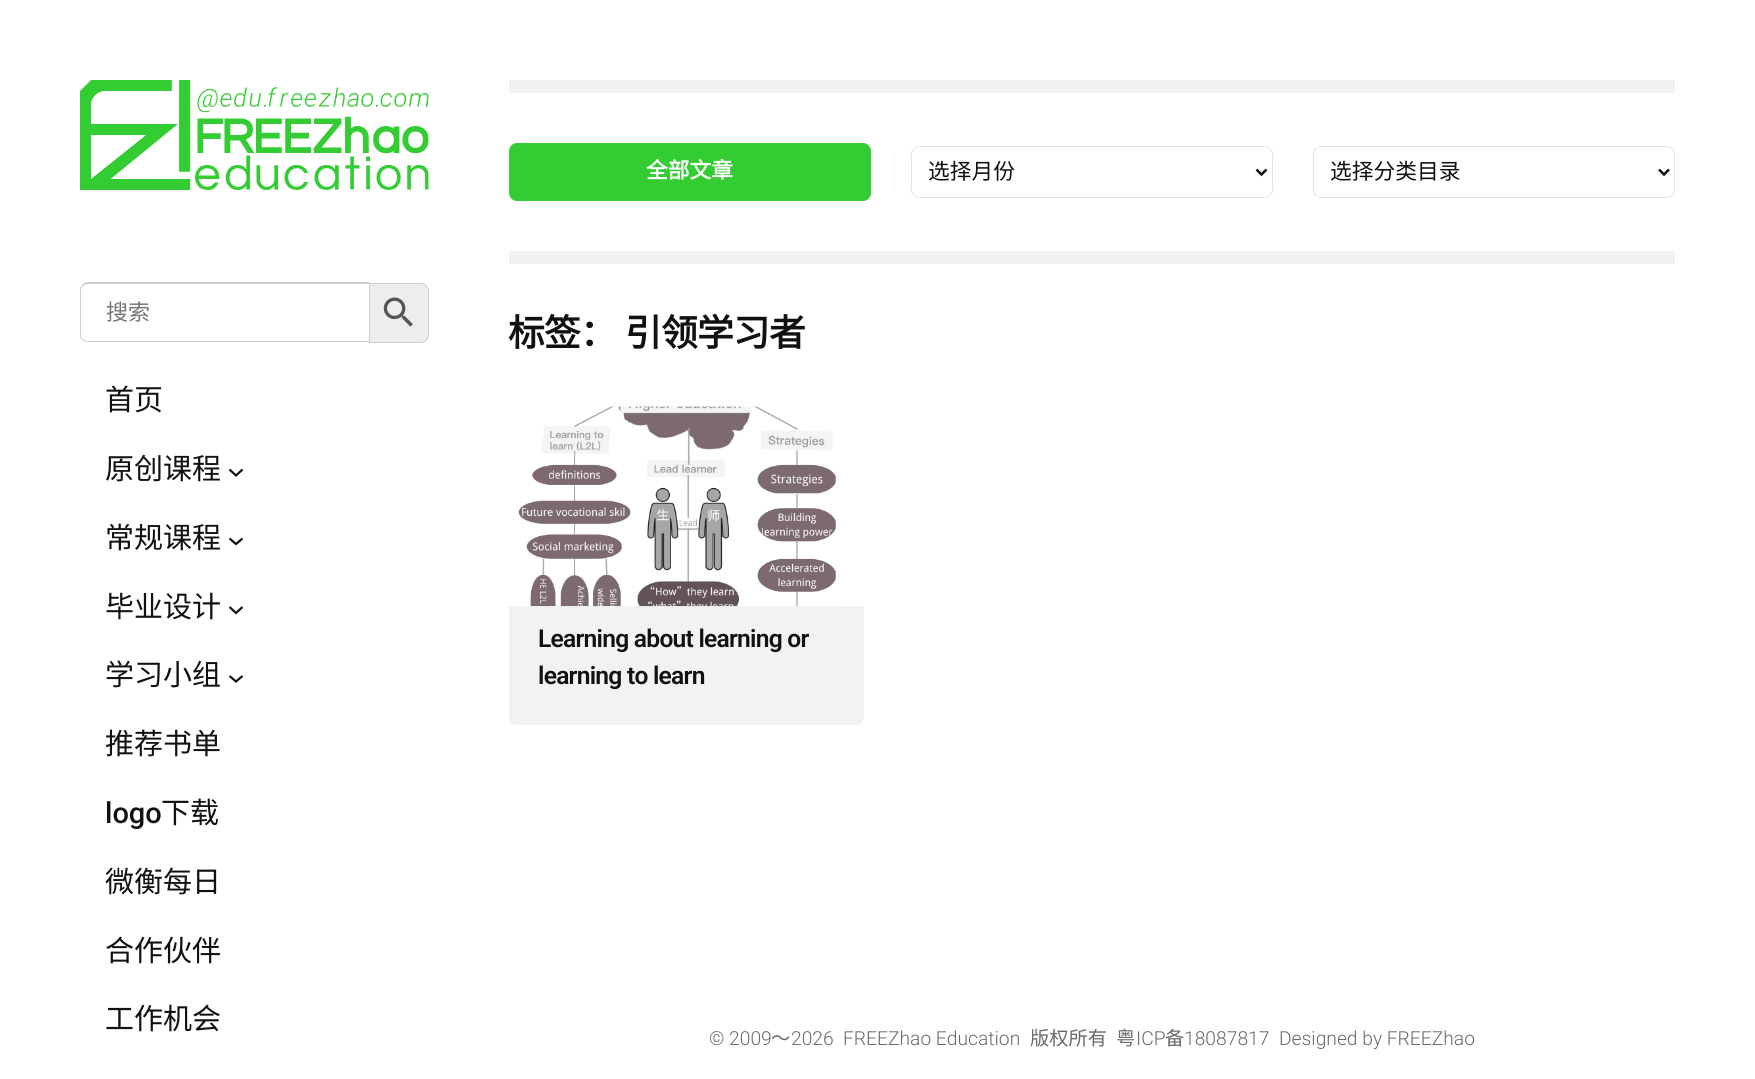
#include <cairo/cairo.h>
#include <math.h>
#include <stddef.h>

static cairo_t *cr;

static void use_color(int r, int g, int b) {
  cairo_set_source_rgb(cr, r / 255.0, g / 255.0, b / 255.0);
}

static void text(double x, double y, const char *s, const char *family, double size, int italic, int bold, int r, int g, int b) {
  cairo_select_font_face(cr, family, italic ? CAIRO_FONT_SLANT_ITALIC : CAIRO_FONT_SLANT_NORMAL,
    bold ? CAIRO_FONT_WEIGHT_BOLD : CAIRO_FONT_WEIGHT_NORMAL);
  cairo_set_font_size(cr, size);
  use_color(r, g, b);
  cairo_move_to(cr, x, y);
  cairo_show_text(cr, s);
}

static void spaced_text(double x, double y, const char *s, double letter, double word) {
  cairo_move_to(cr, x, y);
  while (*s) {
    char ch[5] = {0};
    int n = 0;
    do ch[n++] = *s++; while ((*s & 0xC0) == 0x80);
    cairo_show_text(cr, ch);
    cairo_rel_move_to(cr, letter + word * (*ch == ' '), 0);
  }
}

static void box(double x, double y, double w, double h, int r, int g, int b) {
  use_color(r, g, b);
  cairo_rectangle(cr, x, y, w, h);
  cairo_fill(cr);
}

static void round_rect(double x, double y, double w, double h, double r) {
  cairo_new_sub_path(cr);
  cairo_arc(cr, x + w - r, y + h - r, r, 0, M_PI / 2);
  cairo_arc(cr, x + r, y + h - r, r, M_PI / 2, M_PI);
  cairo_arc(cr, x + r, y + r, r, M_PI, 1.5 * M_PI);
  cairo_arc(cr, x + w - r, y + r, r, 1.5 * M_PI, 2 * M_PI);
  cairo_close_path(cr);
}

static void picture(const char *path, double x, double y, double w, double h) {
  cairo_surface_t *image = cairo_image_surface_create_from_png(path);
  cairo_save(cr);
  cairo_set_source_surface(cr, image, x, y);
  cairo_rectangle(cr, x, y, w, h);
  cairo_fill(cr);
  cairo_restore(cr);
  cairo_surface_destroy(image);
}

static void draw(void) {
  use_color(255, 255, 255);
  cairo_paint(cr);
  picture("img_01.png", 80, 80, 349, 110);
  use_color(204, 204, 204);
  cairo_set_fill_rule(cr, CAIRO_FILL_RULE_EVEN_ODD);
  cairo_new_path(cr);
  cairo_move_to(cr, 88, 282);
  cairo_line_to(cr, 369, 282);
  cairo_line_to(cr, 369, 342);
  cairo_line_to(cr, 88, 342);
  cairo_curve_to(cr, 84, 342, 80, 339, 80, 334);
  cairo_line_to(cr, 80, 290);
  cairo_curve_to(cr, 80, 286, 84, 282, 88, 282);
  cairo_close_path(cr);
  cairo_move_to(cr, 88, 284);
  cairo_line_to(cr, 369, 284);
  cairo_line_to(cr, 369, 341);
  cairo_line_to(cr, 88, 341);
  cairo_curve_to(cr, 84, 341, 81, 338, 81, 334);
  cairo_line_to(cr, 81, 290);
  cairo_curve_to(cr, 81, 287, 84, 284, 88, 284);
  cairo_close_path(cr);
  cairo_fill(cr);
  use_color(237, 237, 237);
  cairo_new_path(cr);
  cairo_move_to(cr, 369.5, 283.5);
  cairo_line_to(cr, 421, 283.5);
  cairo_curve_to(cr, 425, 283.5, 428.5, 287, 428.5, 291);
  cairo_line_to(cr, 428.5, 335);
  cairo_curve_to(cr, 428.5, 339, 425, 342.5, 421, 342.5);
  cairo_line_to(cr, 369.5, 342.5);
  cairo_close_path(cr);
  cairo_fill_preserve(cr);
  use_color(204, 204, 204);
  cairo_set_line_width(cr, 1);
  cairo_stroke(cr);
  picture("img_02.png", 383, 297, 30, 30);
  cairo_new_path(cr);
  cairo_move_to(cr, 229.5, 469.5);
  cairo_line_to(cr, 236, 475.5);
  cairo_line_to(cr, 242.5, 469.5);
  use_color(17, 17, 17);
  cairo_set_line_width(cr, 2.2);
  cairo_stroke(cr);
  cairo_new_path(cr);
  cairo_move_to(cr, 229.5, 538.5);
  cairo_line_to(cr, 236, 544);
  cairo_line_to(cr, 242.5, 538.5);
  cairo_stroke(cr);
  cairo_new_path(cr);
  cairo_move_to(cr, 229.5, 607);
  cairo_line_to(cr, 236, 613);
  cairo_line_to(cr, 242.5, 607);
  cairo_stroke(cr);
  cairo_new_path(cr);
  cairo_move_to(cr, 229.5, 676);
  cairo_line_to(cr, 236, 681.5);
  cairo_line_to(cr, 242.5, 676);
  cairo_stroke(cr);
  box(509, 80, 1166, 13, 241, 241, 241);
  use_color(51, 204, 51);
  round_rect(509, 143, 362, 58, 8);
  cairo_fill(cr);
  round_rect(911.5, 146.5, 361, 51, 7.5);
  use_color(226, 226, 226);
  cairo_set_line_width(cr, 1);
  cairo_stroke(cr);
  cairo_new_path(cr);
  cairo_move_to(cr, 1256.5, 169.5);
  cairo_line_to(cr, 1261.5, 174.5);
  cairo_line_to(cr, 1266.5, 169.5);
  use_color(17, 17, 17);
  cairo_set_line_width(cr, 2.5);
  cairo_stroke(cr);
  round_rect(1313.5, 146.5, 361, 51, 7.5);
  use_color(226, 226, 226);
  cairo_set_line_width(cr, 1);
  cairo_stroke(cr);
  cairo_new_path(cr);
  cairo_move_to(cr, 1659, 169.5);
  cairo_line_to(cr, 1664, 174.5);
  cairo_line_to(cr, 1669, 169.5);
  use_color(17, 17, 17);
  cairo_set_line_width(cr, 2.5);
  cairo_stroke(cr);
  box(509, 251, 1166, 13, 241, 241, 241);
  use_color(243, 242, 242);
  cairo_new_path(cr);
  cairo_move_to(cr, 509, 606);
  cairo_line_to(cr, 864, 606);
  cairo_line_to(cr, 864, 717);
  cairo_curve_to(cr, 864, 721.5, 860.5, 725, 856, 725);
  cairo_line_to(cr, 517, 725);
  cairo_curve_to(cr, 512.5, 725, 509, 721.5, 509, 717);
  cairo_close_path(cr);
  cairo_fill(cr);
  picture("img_03.png", 518, 406, 318, 201);
  text(106, 320, "搜索", "Noto Sans CJK SC", 22, 0, 0, 117, 117, 117);
  text(105, 410, "首页", "Noto Sans CJK SC", 29, 0, 0, 17, 17, 17);
  text(105, 479, "原创课程", "Noto Sans CJK SC", 29, 0, 0, 17, 17, 17);
  text(105, 548, "常规课程", "Noto Sans CJK SC", 29, 0, 0, 17, 17, 17);
  text(105, 617, "毕业设计", "Noto Sans CJK SC", 29, 0, 0, 17, 17, 17);
  text(105, 685, "学习小组", "Noto Sans CJK SC", 29, 0, 0, 17, 17, 17);
  text(105, 754, "推荐书单", "Noto Sans CJK SC", 29, 0, 0, 17, 17, 17);
  text(105, 823, "logo", "Roboto Medium", 29, 0, 0, 17, 17, 17);
  text(161, 823, "下载", "Noto Sans CJK SC", 29, 0, 0, 17, 17, 17);
  text(105, 892, "微衡每日", "Noto Sans CJK SC", 29, 0, 0, 17, 17, 17);
  text(105, 961, "合作伙伴", "Noto Sans CJK SC", 29, 0, 0, 17, 17, 17);
  text(105, 1029, "工作机会", "Noto Sans CJK SC", 29, 0, 0, 17, 17, 17);
  text(646, 178, "全部文章", "Noto Sans CJK SC", 21.75, 0, 1, 255, 255, 255);
  text(928, 179, "选择月份", "Noto Sans CJK SC", 21.75, 0, 0, 17, 17, 17);
  text(1330, 179, "选择分类目录", "Noto Sans CJK SC", 21.75, 0, 0, 17, 17, 17);
  cairo_select_font_face(cr, "Noto Sans CJK SC", CAIRO_FONT_SLANT_NORMAL, CAIRO_FONT_WEIGHT_BOLD);
  cairo_set_font_size(cr, 36.75);
  spaced_text(508, 346, "标签：", -0.75, 0);
  spaced_text(625, 346, "引领学习者", -0.75, 0);
  cairo_select_font_face(cr, "Roboto SemiBold", CAIRO_FONT_SLANT_NORMAL, CAIRO_FONT_WEIGHT_NORMAL);
  cairo_set_font_size(cr, 24.6);
  spaced_text(538, 647, "Learning about learning or", -0.75, 0);
  spaced_text(538, 684, "learning to learn", -0.75, 0);
  text(709, 1045, "© 2009", "Roboto Light", 19.25, 0, 0, 107, 106, 106);
  text(771, 1045, "～", "Noto Sans CJK SC", 19.25, 0, 0, 107, 106, 106);
  text(791, 1045, "2026", "Roboto Light", 19.25, 0, 0, 107, 106, 106);
  text(843, 1045, "FREEZhao Education", "Roboto Light", 19.25, 0, 0, 107, 106, 106);
  text(1030, 1045, "版权所有", "Noto Sans CJK SC", 19.25, 0, 0, 107, 106, 106);
  text(1116, 1045, "粤", "Noto Sans CJK SC", 19.25, 0, 0, 107, 106, 106);
  text(1136, 1045, "ICP", "Roboto Light", 19.25, 0, 0, 107, 106, 106);
  text(1165, 1045, "备", "Noto Sans CJK SC", 19.25, 0, 0, 107, 106, 106);
  text(1184, 1045, "18087817", "Roboto Light", 19.25, 0, 0, 107, 106, 106);
  text(1279, 1045, "Designed by FREEZhao", "Roboto Light", 19.25, 0, 0, 107, 106, 106);
}

int main(void) {
  cairo_surface_t *surface = cairo_image_surface_create(CAIRO_FORMAT_RGB24, 1755, 1079);
  cr = cairo_create(surface);
  cairo_font_options_t *options = cairo_font_options_create();
  cairo_font_options_set_hint_metrics(options, CAIRO_HINT_METRICS_OFF);
  cairo_font_options_set_hint_style(options, CAIRO_HINT_STYLE_NONE);
  cairo_set_font_options(cr, options);
  cairo_set_miter_limit(cr, 4);
  draw();
  cairo_surface_write_to_png(surface, "out.png");
  cairo_font_options_destroy(options);
  cairo_destroy(cr);
  cairo_surface_destroy(surface);
  return 0;
}
